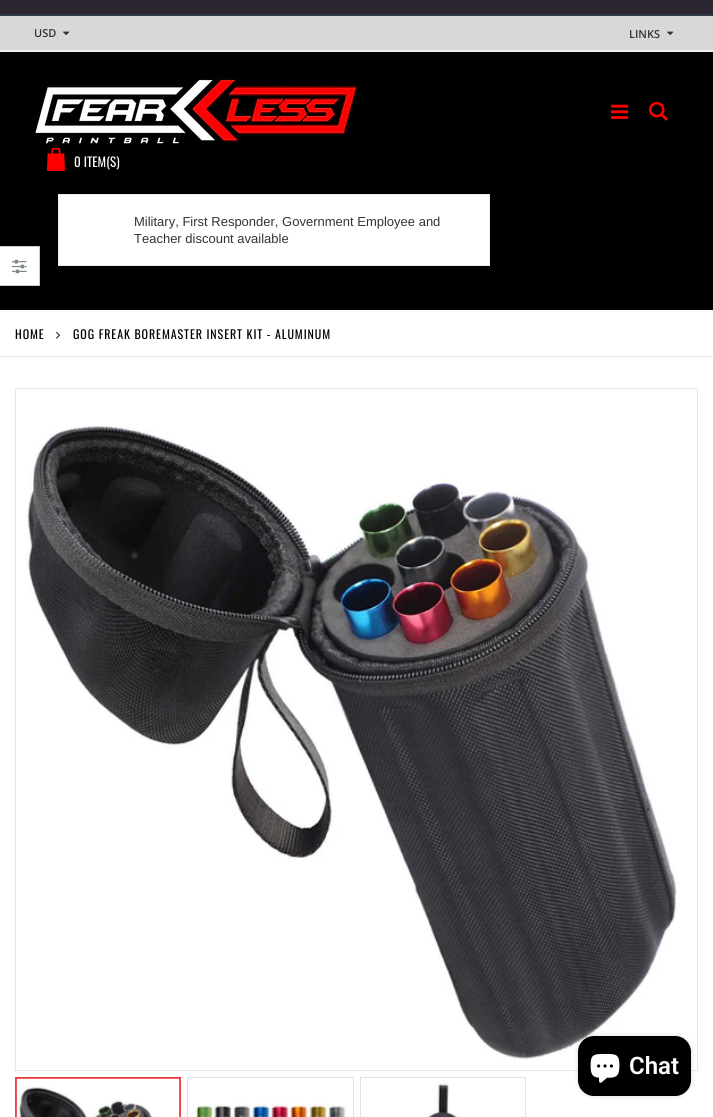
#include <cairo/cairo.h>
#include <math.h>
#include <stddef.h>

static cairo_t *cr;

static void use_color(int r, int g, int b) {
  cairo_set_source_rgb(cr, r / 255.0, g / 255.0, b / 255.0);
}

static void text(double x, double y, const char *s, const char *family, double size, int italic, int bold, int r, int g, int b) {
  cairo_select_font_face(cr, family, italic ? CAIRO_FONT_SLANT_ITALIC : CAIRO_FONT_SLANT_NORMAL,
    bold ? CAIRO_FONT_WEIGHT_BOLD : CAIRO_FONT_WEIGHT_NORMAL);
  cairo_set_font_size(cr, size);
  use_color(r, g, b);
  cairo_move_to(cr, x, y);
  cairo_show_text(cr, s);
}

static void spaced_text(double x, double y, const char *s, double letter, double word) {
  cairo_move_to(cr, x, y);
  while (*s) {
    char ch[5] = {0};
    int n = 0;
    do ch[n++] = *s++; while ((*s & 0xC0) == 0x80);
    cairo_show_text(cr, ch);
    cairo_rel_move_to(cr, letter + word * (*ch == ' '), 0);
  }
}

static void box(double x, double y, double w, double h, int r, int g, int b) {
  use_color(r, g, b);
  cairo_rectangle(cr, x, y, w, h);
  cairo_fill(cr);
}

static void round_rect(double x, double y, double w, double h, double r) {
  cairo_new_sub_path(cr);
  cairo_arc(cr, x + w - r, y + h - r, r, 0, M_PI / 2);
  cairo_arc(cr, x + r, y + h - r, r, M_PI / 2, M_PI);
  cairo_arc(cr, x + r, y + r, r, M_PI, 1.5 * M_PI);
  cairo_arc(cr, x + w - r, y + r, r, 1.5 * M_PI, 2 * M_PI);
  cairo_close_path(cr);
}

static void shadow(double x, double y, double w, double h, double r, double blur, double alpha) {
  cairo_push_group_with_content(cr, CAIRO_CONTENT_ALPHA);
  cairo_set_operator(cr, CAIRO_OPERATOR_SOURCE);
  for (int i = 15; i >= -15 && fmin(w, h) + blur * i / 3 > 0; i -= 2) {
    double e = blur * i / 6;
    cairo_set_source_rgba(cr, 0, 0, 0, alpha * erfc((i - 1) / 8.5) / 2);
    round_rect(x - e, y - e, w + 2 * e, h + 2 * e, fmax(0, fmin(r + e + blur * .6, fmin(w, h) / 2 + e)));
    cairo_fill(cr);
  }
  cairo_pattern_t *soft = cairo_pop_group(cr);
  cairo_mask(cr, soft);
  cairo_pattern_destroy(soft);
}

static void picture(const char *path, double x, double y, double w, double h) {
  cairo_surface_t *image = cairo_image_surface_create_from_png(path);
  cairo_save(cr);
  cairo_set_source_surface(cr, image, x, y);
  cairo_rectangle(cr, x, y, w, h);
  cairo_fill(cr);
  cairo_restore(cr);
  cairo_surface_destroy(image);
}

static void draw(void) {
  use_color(255, 255, 255);
  cairo_paint(cr);
  box(0, 0, 713, 14, 43, 38, 47);
  box(0, 52, 713, 258, 0, 0, 0);
  box(0, 14, 713, 2, 47, 57, 70);
  box(0, 16, 713, 34, 216, 216, 214);
  box(0, 50, 713, 2, 238, 238, 238);
  picture("img_01.png", 63, 31, 7, 5);
  picture("img_01.png", 667, 31, 7, 5);
  picture("img_02.png", 34, 76, 324, 70);
  picture("img_03.png", 611, 104, 18, 15);
  picture("img_04.png", 649, 101, 19, 20);
  picture("img_05.png", 46, 147, 19, 24);
  use_color(255, 255, 255);
  cairo_rectangle(cr, 58.5, 194.5, 431, 71);
  cairo_fill_preserve(cr);
  use_color(238, 238, 238);
  cairo_set_line_width(cr, 1);
  cairo_stroke(cr);
  box(0, 247, 39, 38, 255, 255, 255);
  box(0, 246, 40, 1, 204, 204, 204);
  box(39, 246, 1, 40, 204, 204, 204);
  box(0, 285, 40, 1, 204, 204, 204);
  picture("img_06.png", 12, 259, 15, 15);
  cairo_rectangle(cr, 15.5, 388.5, 682, 682);
  use_color(230, 230, 230);
  cairo_stroke(cr);
  picture("img_07.png", 25, 425, 654, 636);
  cairo_rectangle(cr, 16, 1078, 164, 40);
  use_color(238, 61, 67);
  cairo_set_line_width(cr, 2);
  cairo_stroke(cr);
  picture("img_08.png", 16, 1078, 164, 39);
  cairo_rectangle(cr, 187.5, 1077.5, 166, 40);
  use_color(221, 221, 221);
  cairo_set_line_width(cr, 1);
  cairo_stroke(cr);
  picture("img_09.png", 189, 1077, 165, 40);
  cairo_rectangle(cr, 360.5, 1077.5, 165, 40);
  cairo_stroke(cr);
  picture("img_10.png", 360, 1077, 166, 40);
  box(0, 356, 713, 1, 230, 230, 230);
  picture("img_11.png", 56, 331, 4, 8);
  use_color(0, 0, 0);
  shadow(578, 1036, 113, 60, 16, 2.5, 0.15);
  use_color(0, 0, 0);
  round_rect(578, 1036, 113, 60, 16);
  cairo_fill(cr);
  picture("img_12.png", 590, 1054, 30, 29);
  text(34, 37, "USD", "Open Sans SemiBold", 11, 0, 0, 51, 51, 51);
  text(629, 38, "LINKS", "Open Sans SemiBold", 11, 0, 0, 51, 51, 51);
  text(74, 167, "0 ITEM(S)", "Oswald", 13, 0, 0, 255, 255, 255);
  text(134, 226, "Military, First Responder, Government Employee and", "Liberation Sans", 13, 0, 0, 51, 51, 51);
  text(134, 243, "Teacher discount available", "Liberation Sans", 13, 0, 0, 51, 51, 51);
  cairo_select_font_face(cr, "Oswald", CAIRO_FONT_SLANT_NORMAL, CAIRO_FONT_WEIGHT_NORMAL);
  cairo_set_font_size(cr, 12);
  use_color(0, 0, 0);
  spaced_text(15, 339, "HOME", 0.9, 0);
  spaced_text(73, 339, "GOG FREAK BOREMASTER INSERT KIT - ALUMINUM", 0.9, 0);
  text(629, 1074, "Chat", "Roboto SemiBold", 24, 0, 0, 255, 255, 255);
}

int main(void) {
  cairo_surface_t *surface = cairo_image_surface_create(CAIRO_FORMAT_RGB24, 713, 1117);
  cr = cairo_create(surface);
  cairo_font_options_t *options = cairo_font_options_create();
  cairo_font_options_set_hint_metrics(options, CAIRO_HINT_METRICS_OFF);
  cairo_font_options_set_hint_style(options, CAIRO_HINT_STYLE_NONE);
  cairo_set_font_options(cr, options);
  cairo_set_miter_limit(cr, 4);
  draw();
  cairo_surface_write_to_png(surface, "out.png");
  cairo_font_options_destroy(options);
  cairo_destroy(cr);
  cairo_surface_destroy(surface);
  return 0;
}
